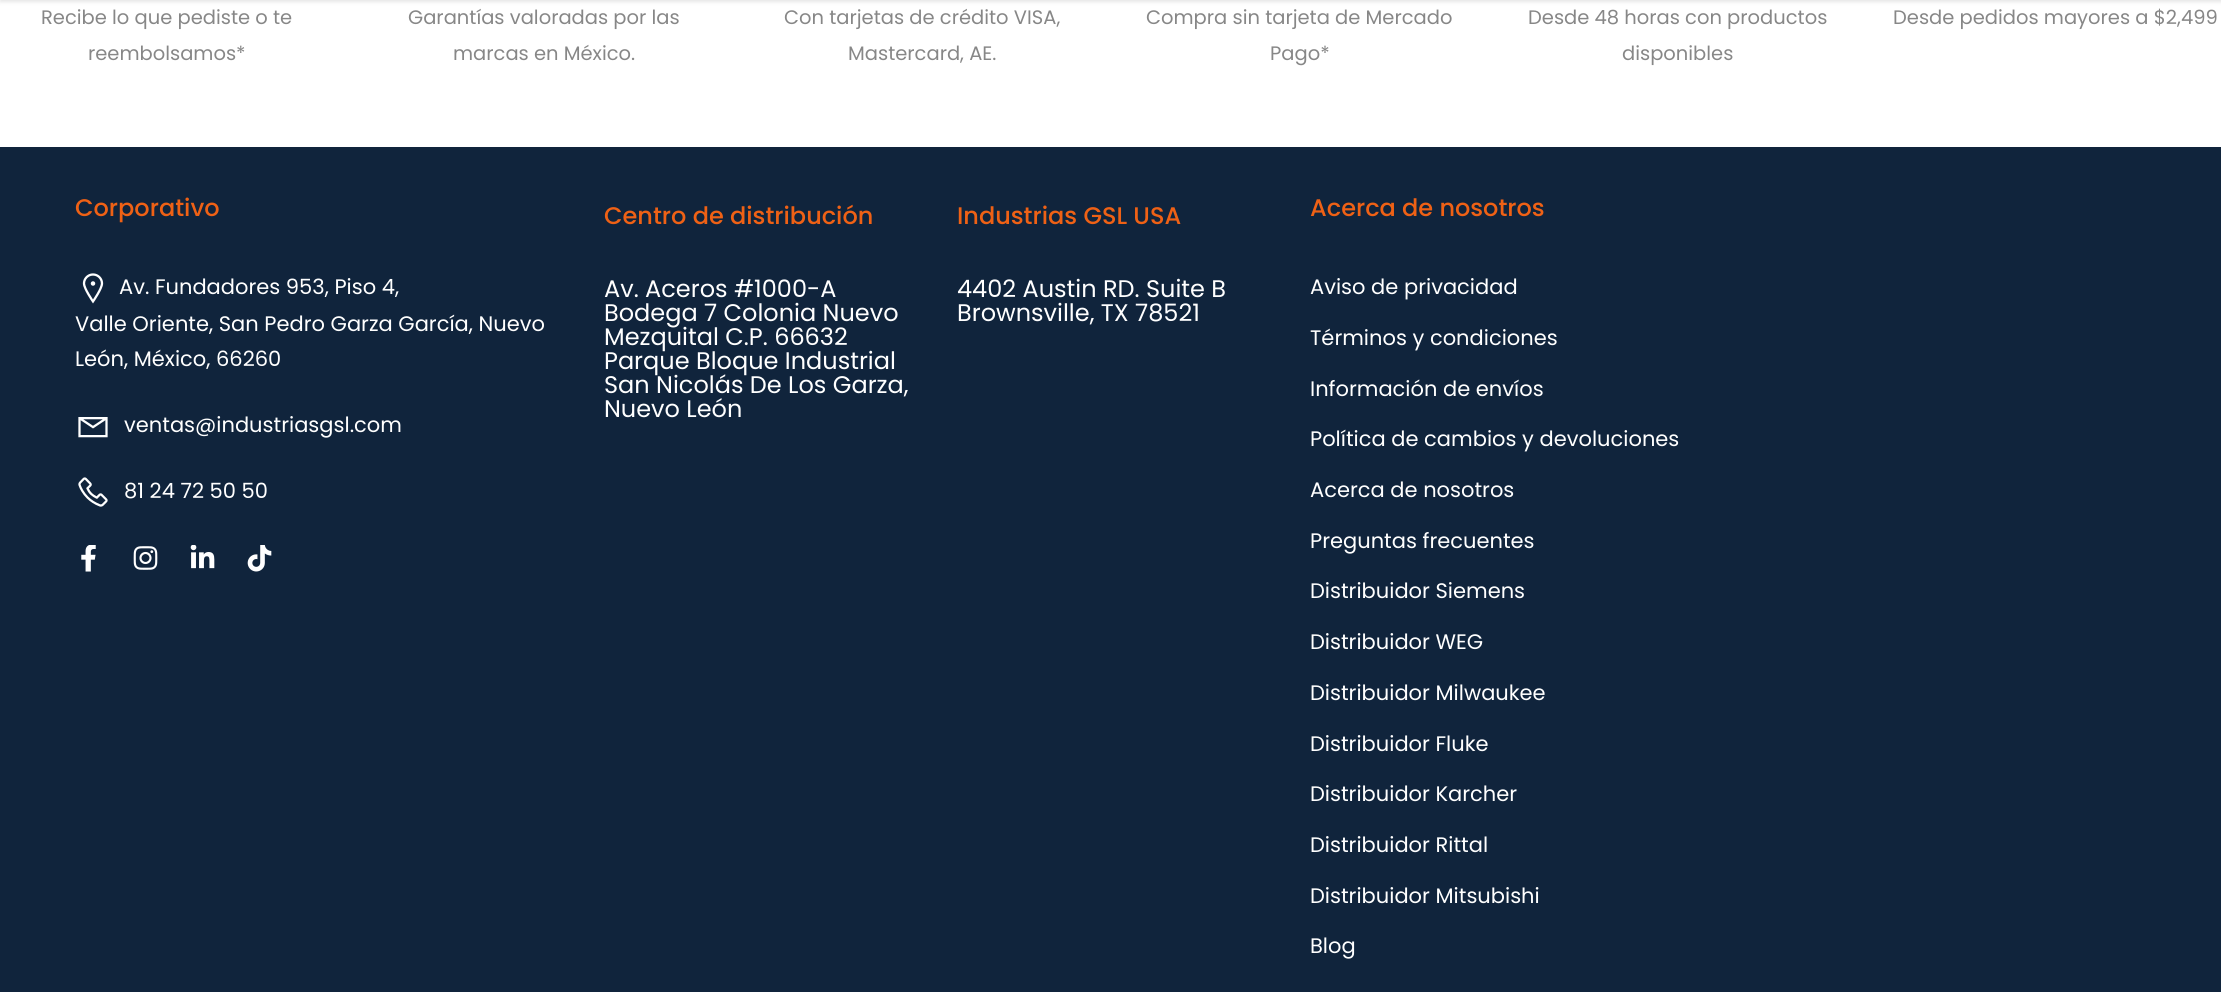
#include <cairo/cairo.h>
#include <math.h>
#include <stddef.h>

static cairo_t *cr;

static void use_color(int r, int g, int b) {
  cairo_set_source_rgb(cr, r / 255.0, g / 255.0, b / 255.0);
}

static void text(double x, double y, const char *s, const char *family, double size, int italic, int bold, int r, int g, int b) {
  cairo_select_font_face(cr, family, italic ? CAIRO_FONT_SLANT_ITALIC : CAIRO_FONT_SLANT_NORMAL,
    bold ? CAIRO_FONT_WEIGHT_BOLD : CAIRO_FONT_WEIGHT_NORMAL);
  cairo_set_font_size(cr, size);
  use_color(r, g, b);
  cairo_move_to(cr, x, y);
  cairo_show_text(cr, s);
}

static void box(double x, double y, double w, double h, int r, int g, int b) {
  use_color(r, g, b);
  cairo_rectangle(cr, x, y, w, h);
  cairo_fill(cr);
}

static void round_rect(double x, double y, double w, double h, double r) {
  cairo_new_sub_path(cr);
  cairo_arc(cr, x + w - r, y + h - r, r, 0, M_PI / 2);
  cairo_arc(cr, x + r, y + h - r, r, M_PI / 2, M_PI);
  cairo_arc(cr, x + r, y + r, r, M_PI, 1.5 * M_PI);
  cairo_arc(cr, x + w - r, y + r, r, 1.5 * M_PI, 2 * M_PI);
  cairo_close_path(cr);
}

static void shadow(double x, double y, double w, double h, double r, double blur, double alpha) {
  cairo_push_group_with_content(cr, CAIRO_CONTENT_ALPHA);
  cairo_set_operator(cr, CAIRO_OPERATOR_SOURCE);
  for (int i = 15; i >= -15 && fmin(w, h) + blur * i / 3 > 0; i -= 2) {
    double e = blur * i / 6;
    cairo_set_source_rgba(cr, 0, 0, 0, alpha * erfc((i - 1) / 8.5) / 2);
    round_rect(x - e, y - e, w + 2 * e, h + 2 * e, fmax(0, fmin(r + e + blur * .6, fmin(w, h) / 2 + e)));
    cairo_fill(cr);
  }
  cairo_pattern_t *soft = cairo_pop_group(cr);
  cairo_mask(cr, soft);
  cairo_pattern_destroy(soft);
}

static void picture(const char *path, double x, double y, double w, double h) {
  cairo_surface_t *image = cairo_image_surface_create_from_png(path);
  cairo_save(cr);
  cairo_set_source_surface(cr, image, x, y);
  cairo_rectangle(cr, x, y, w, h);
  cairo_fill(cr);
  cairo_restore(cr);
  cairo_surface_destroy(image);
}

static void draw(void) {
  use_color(255, 255, 255);
  cairo_paint(cr);
  use_color(0, 0, 0);
  shadow(0, -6, 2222, 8, 0, 2, 0.1);
  box(0, 147, 2221, 845, 16, 36, 60);
  picture("img_01.png", 82, 273, 22, 31);
  picture("img_02.png", 78, 417, 30, 21);
  picture("img_03.png", 78, 477, 30, 30);
  picture("img_04.png", 81, 545, 15, 27);
  picture("img_05.png", 133, 546, 25, 24);
  picture("img_06.png", 190, 545, 25, 24);
  picture("img_07.png", 247, 545, 25, 27);
  text(41, 24, "Recibe lo que pediste o te", "Poppins", 19.5, 0, 0, 135, 135, 135);
  text(88, 60, "reembolsamos*", "Poppins", 19.5, 0, 0, 135, 135, 135);
  text(408, 24, "Garantías valoradas por las", "Poppins", 19.5, 0, 0, 135, 135, 135);
  text(453, 60, "marcas en México.", "Poppins", 19.5, 0, 0, 135, 135, 135);
  text(784, 24, "Con tarjetas de crédito VISA,", "Poppins", 19.5, 0, 0, 135, 135, 135);
  text(848, 60, "Mastercard, AE.", "Poppins", 19.5, 0, 0, 135, 135, 135);
  text(1146, 24, "Compra sin tarjeta de Mercado", "Poppins", 19.5, 0, 0, 135, 135, 135);
  text(1270, 60, "Pago*", "Poppins", 19.5, 0, 0, 135, 135, 135);
  text(1528, 24, "Desde 48 horas con productos", "Poppins", 19.5, 0, 0, 135, 135, 135);
  text(1622, 60, "disponibles", "Poppins", 19.5, 0, 0, 135, 135, 135);
  text(1893, 24, "Desde pedidos mayores a $2,499", "Poppins", 19.5, 0, 0, 135, 135, 135);
  text(75, 216, "Corporativo", "Poppins Medium", 24, 0, 0, 239, 97, 21);
  text(119, 294, "Av. Fundadores 953, Piso 4,", "Poppins", 21, 0, 0, 255, 255, 255);
  text(75, 331, "Valle Oriente, San Pedro Garza García, Nuevo", "Poppins", 21, 0, 0, 255, 255, 255);
  text(75, 366, "León, México, 66260", "Poppins", 21, 0, 0, 255, 255, 255);
  text(124, 432, "ventas@industriasgsl.com", "Poppins", 21, 0, 0, 255, 255, 255);
  text(124, 498, "81 24 72 50 50", "Poppins", 21, 0, 0, 255, 255, 255);
  text(604, 224, "Centro de distribución", "Poppins Medium", 24, 0, 0, 239, 97, 21);
  text(604, 297, "Av. Aceros #1000-A", "Poppins", 24, 0, 0, 255, 255, 255);
  text(604, 321, "Bodega 7 Colonia Nuevo", "Poppins", 24, 0, 0, 255, 255, 255);
  text(604, 345, "Mezquital C.P. 66632", "Poppins", 24, 0, 0, 255, 255, 255);
  text(604, 369, "Parque Bloque Industrial", "Poppins", 24, 0, 0, 255, 255, 255);
  text(604, 393, "San Nicolás De Los Garza,", "Poppins", 24, 0, 0, 255, 255, 255);
  text(604, 417, "Nuevo León", "Poppins", 24, 0, 0, 255, 255, 255);
  text(957, 224, "Industrias GSL USA", "Poppins Medium", 24, 0, 0, 239, 97, 21);
  text(957, 297, "4402 Austin RD. Suite B", "Poppins", 24, 0, 0, 255, 255, 255);
  text(957, 321, "Brownsville, TX 78521", "Poppins", 24, 0, 0, 255, 255, 255);
  text(1310, 216, "Acerca de nosotros", "Poppins Medium", 24, 0, 0, 239, 97, 21);
  text(1310, 294, "Aviso de privacidad", "Poppins", 21, 0, 0, 255, 255, 255);
  text(1310, 345, "Términos y condiciones", "Poppins", 21, 0, 0, 255, 255, 255);
  text(1310, 396, "Información de envíos", "Poppins", 21, 0, 0, 255, 255, 255);
  text(1310, 446, "Política de cambios y devoluciones", "Poppins", 21, 0, 0, 255, 255, 255);
  text(1310, 497, "Acerca de nosotros", "Poppins", 21, 0, 0, 255, 255, 255);
  text(1310, 548, "Preguntas frecuentes", "Poppins", 21, 0, 0, 255, 255, 255);
  text(1310, 598, "Distribuidor Siemens", "Poppins", 21, 0, 0, 255, 255, 255);
  text(1310, 649, "Distribuidor WEG", "Poppins", 21, 0, 0, 255, 255, 255);
  text(1310, 700, "Distribuidor Milwaukee", "Poppins", 21, 0, 0, 255, 255, 255);
  text(1310, 751, "Distribuidor Fluke", "Poppins", 21, 0, 0, 255, 255, 255);
  text(1310, 801, "Distribuidor Karcher", "Poppins", 21, 0, 0, 255, 255, 255);
  text(1310, 852, "Distribuidor Rittal", "Poppins", 21, 0, 0, 255, 255, 255);
  text(1310, 903, "Distribuidor Mitsubishi", "Poppins", 21, 0, 0, 255, 255, 255);
  text(1310, 953, "Blog", "Poppins", 21, 0, 0, 255, 255, 255);
}

int main(void) {
  cairo_surface_t *surface = cairo_image_surface_create(CAIRO_FORMAT_RGB24, 2221, 992);
  cr = cairo_create(surface);
  cairo_font_options_t *options = cairo_font_options_create();
  cairo_font_options_set_hint_metrics(options, CAIRO_HINT_METRICS_OFF);
  cairo_font_options_set_hint_style(options, CAIRO_HINT_STYLE_NONE);
  cairo_set_font_options(cr, options);
  cairo_set_miter_limit(cr, 4);
  draw();
  cairo_surface_write_to_png(surface, "out.png");
  cairo_font_options_destroy(options);
  cairo_destroy(cr);
  cairo_surface_destroy(surface);
  return 0;
}
